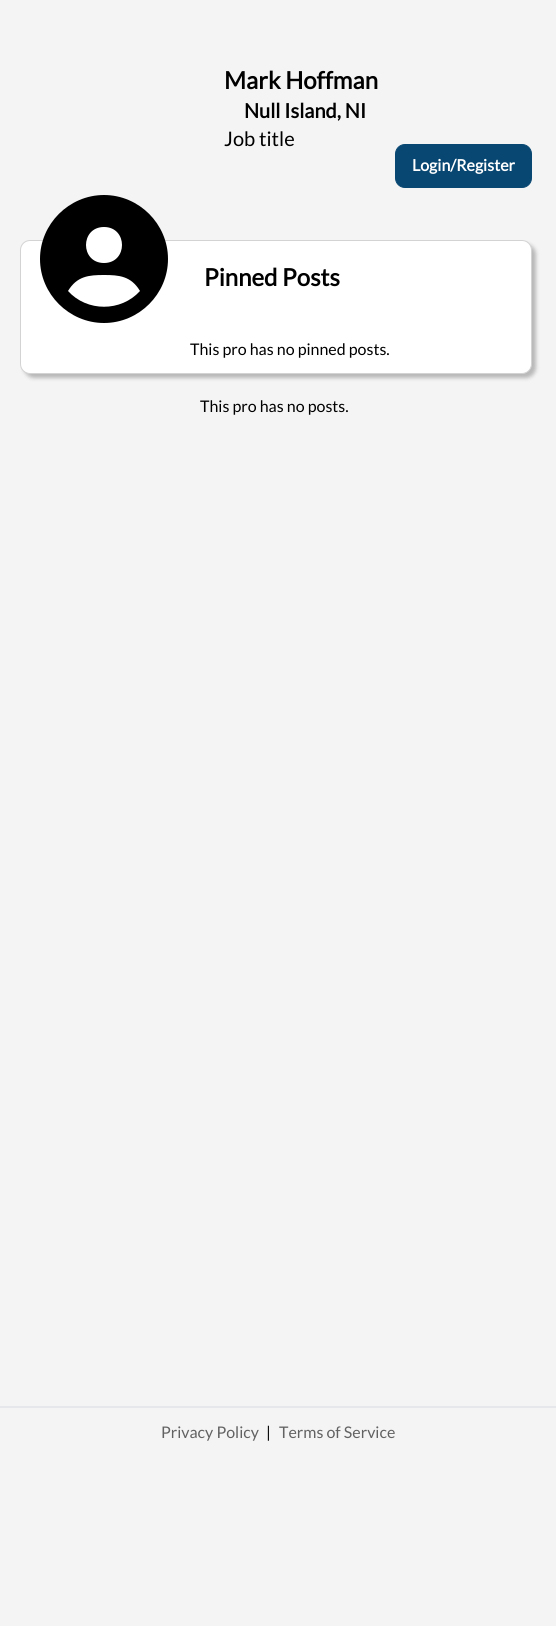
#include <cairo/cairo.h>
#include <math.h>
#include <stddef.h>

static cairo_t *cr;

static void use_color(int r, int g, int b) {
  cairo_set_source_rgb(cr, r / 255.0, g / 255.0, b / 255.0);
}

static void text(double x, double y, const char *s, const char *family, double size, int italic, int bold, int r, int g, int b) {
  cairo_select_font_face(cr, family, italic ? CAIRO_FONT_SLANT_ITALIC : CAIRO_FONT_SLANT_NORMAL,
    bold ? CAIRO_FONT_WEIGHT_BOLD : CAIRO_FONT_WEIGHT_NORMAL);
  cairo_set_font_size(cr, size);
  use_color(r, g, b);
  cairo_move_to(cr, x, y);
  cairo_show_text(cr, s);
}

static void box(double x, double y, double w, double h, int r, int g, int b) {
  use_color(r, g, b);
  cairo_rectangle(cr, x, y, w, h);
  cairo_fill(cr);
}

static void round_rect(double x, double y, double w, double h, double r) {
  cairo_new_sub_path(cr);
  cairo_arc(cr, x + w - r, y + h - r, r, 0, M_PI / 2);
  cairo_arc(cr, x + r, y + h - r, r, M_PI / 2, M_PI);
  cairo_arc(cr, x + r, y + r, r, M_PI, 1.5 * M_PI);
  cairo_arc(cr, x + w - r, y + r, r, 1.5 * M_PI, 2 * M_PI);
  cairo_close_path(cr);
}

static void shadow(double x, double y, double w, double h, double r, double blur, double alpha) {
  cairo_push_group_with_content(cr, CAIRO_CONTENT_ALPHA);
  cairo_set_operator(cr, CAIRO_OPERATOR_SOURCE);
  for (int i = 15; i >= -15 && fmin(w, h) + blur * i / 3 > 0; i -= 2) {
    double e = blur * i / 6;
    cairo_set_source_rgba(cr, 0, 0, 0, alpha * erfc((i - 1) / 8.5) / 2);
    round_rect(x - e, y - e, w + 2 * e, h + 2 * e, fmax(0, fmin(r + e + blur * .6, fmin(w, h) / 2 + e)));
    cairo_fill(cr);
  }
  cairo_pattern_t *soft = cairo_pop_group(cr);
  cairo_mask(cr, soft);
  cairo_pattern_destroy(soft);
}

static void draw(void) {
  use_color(244, 244, 244);
  cairo_paint(cr);
  use_color(8, 71, 114);
  round_rect(395.5, 144.5, 136, 43, 9.5);
  cairo_fill_preserve(cr);
  cairo_set_line_width(cr, 1);
  cairo_stroke(cr);
  use_color(0, 0, 0);
  shadow(24, 244, 512, 134, 10, 2, 0.25);
  use_color(255, 255, 255);
  round_rect(20.5, 240.5, 511, 133, 9.5);
  cairo_fill_preserve(cr);
  use_color(211, 211, 211);
  cairo_stroke(cr);
  use_color(255, 255, 255);
  cairo_arc(cr, 104, 259, 64, 0, 2 * M_PI);
  cairo_fill(cr);
  use_color(0, 0, 0);
  cairo_new_path(cr);
  cairo_move_to(cr, 140, 291);
  cairo_curve_to(cr, 131, 276, 119, 275, 104, 275);
  cairo_curve_to(cr, 89, 275, 77, 276, 68, 291);
  cairo_curve_to(cr, 87, 312, 121, 312, 140, 291);
  cairo_close_path(cr);
  cairo_move_to(cr, 168, 259);
  cairo_curve_to(cr, 168, 294, 139, 323, 104, 323);
  cairo_curve_to(cr, 69, 323, 40, 294, 40, 259);
  cairo_curve_to(cr, 40, 224, 69, 195, 104, 195);
  cairo_curve_to(cr, 139, 195, 168, 224, 168, 259);
  cairo_close_path(cr);
  cairo_move_to(cr, 104, 263);
  cairo_curve_to(cr, 128, 263, 128, 227, 104, 227);
  cairo_curve_to(cr, 80, 227, 80, 263, 104, 263);
  cairo_close_path(cr);
  cairo_fill(cr);
  box(0, 1406, 556, 2, 229, 231, 235);
  text(224, 89, "Mark Hoffman", "Lato", 24, 0, 1, 0, 0, 0);
  text(244, 118, "Null Island, NI", "Lato", 20, 0, 1, 0, 0, 0);
  text(224, 146, "Job title", "Lato", 20, 0, 0, 0, 0, 0);
  text(412, 171, "Login/Register", "Lato", 16, 0, 1, 255, 255, 255);
  text(204, 286, "Pinned Posts", "Lato", 24, 0, 1, 0, 0, 0);
  text(190, 355, "This pro has no pinned posts.", "Lato", 16, 0, 0, 0, 0, 0);
  text(200, 412, "This pro has no posts.", "Lato", 16, 0, 0, 0, 0, 0);
  text(161, 1438, "Privacy Policy", "Lato", 16, 0, 0, 98, 98, 98);
  text(266, 1438, "|", "Lato", 16, 0, 0, 0, 0, 0);
  text(279, 1438, "Terms of Service", "Lato", 16, 0, 0, 98, 98, 98);
}

int main(void) {
  cairo_surface_t *surface = cairo_image_surface_create(CAIRO_FORMAT_RGB24, 556, 1626);
  cr = cairo_create(surface);
  cairo_font_options_t *options = cairo_font_options_create();
  cairo_font_options_set_hint_metrics(options, CAIRO_HINT_METRICS_OFF);
  cairo_font_options_set_hint_style(options, CAIRO_HINT_STYLE_NONE);
  cairo_set_font_options(cr, options);
  cairo_set_miter_limit(cr, 4);
  draw();
  cairo_surface_write_to_png(surface, "out.png");
  cairo_font_options_destroy(options);
  cairo_destroy(cr);
  cairo_surface_destroy(surface);
  return 0;
}
